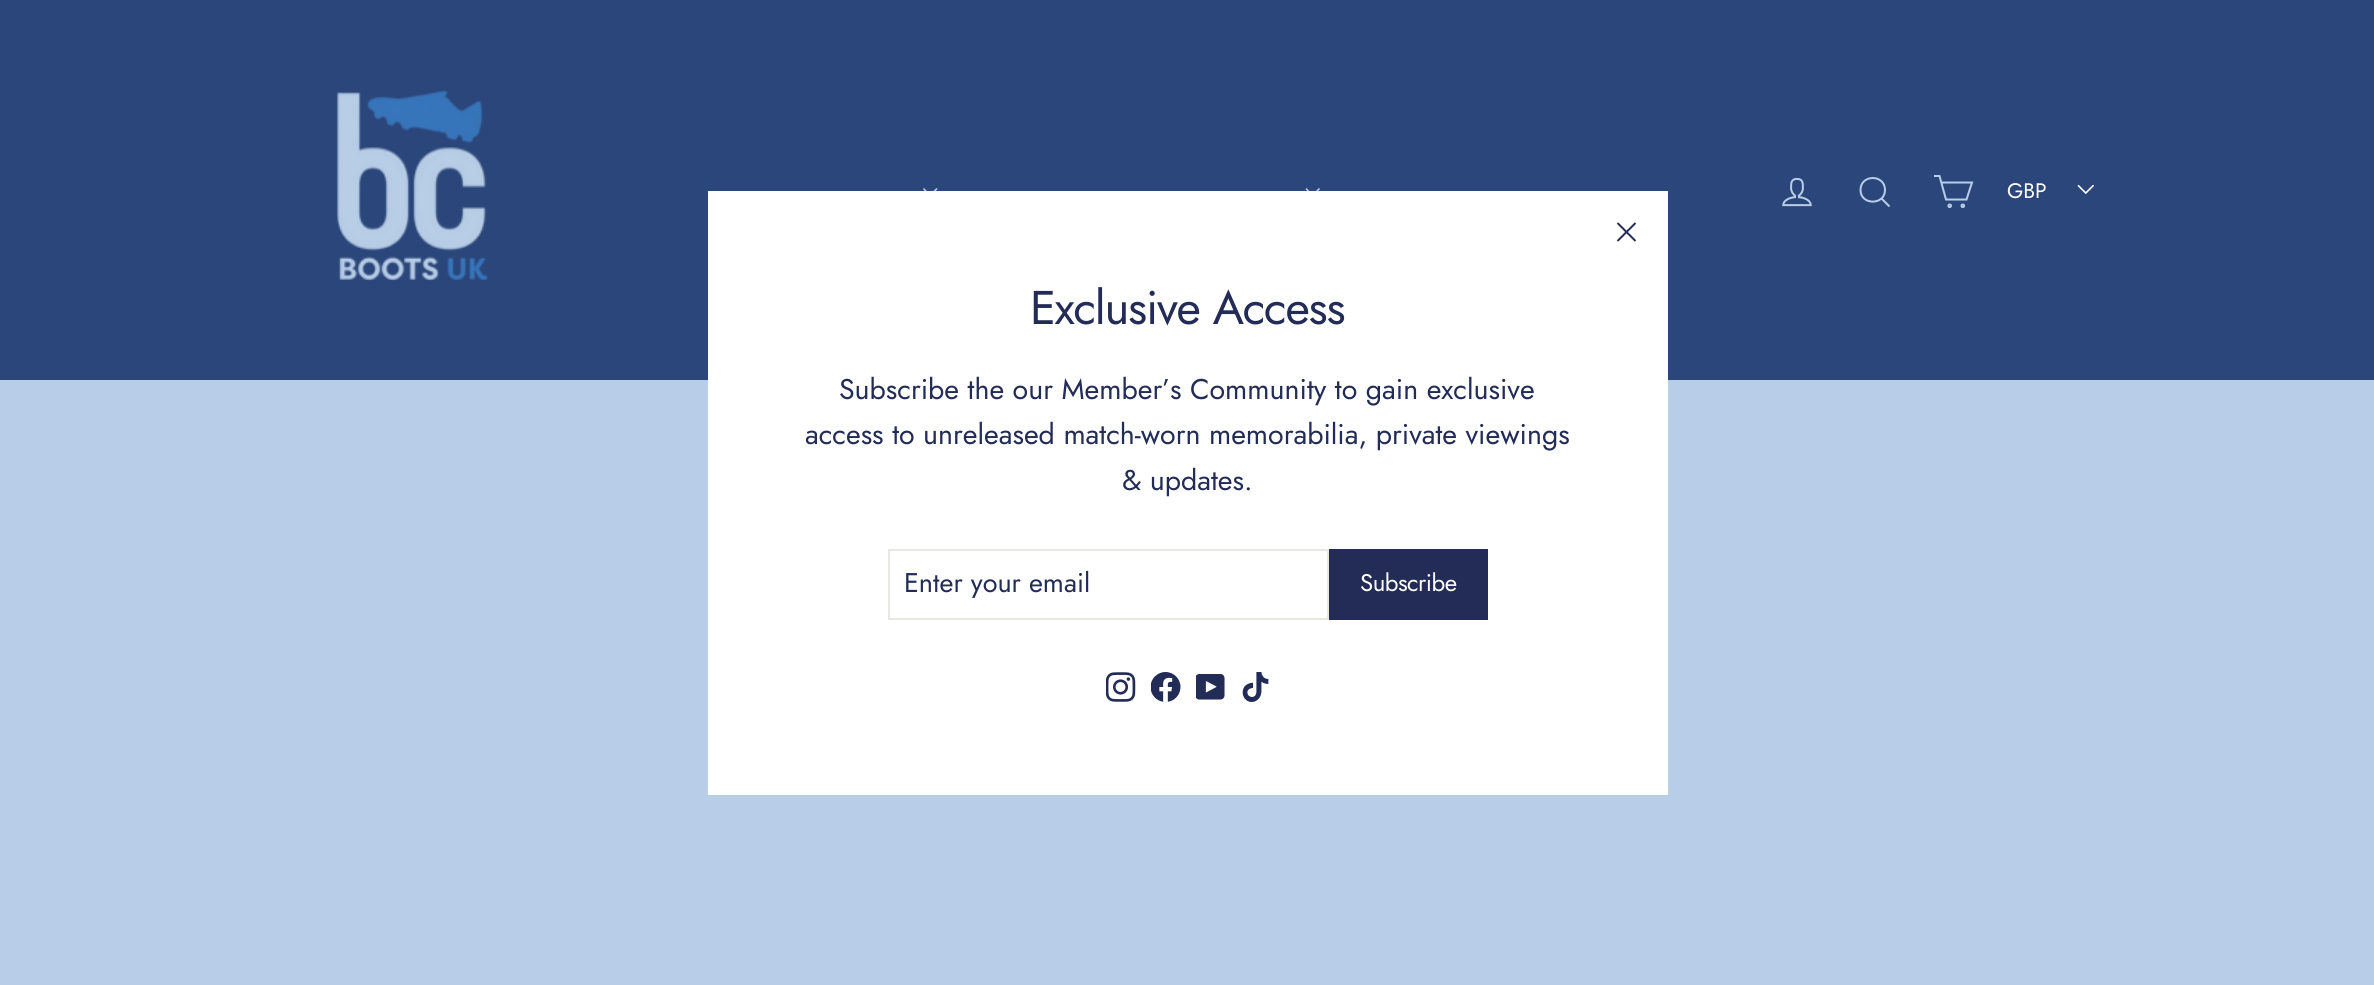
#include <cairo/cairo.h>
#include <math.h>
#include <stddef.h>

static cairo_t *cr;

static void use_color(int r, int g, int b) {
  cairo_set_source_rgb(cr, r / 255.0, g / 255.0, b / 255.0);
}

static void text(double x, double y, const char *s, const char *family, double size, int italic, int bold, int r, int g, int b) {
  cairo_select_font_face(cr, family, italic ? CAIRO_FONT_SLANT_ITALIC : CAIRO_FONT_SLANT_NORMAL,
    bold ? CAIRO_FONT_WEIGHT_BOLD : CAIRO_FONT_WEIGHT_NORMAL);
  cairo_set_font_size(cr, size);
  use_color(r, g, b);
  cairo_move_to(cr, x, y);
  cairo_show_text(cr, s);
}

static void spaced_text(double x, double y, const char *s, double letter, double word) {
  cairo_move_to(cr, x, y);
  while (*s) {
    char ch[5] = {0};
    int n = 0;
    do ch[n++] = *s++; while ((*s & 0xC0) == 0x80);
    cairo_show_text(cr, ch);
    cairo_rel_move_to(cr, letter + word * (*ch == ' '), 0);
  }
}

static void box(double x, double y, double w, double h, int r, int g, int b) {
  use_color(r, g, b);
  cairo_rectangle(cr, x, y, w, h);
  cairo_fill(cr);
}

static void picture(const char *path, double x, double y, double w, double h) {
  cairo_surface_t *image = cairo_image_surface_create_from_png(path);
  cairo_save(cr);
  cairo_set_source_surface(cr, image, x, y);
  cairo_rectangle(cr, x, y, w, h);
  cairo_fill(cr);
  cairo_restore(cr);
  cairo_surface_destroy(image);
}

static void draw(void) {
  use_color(184, 205, 231);
  cairo_paint(cr);
  box(0, 0, 2374, 380, 43, 70, 122);
  picture("img_01.png", 336, 90, 153, 191);
  cairo_new_path(cr);
  cairo_move_to(cr, 923.5, 188.5);
  cairo_line_to(cr, 930, 195.5);
  cairo_line_to(cr, 937, 188.5);
  use_color(184, 205, 231);
  cairo_set_line_width(cr, 1.6);
  cairo_stroke(cr);
  cairo_new_path(cr);
  cairo_move_to(cr, 1306, 188.5);
  cairo_line_to(cr, 1312.5, 195.5);
  cairo_line_to(cr, 1319.5, 188.5);
  cairo_stroke(cr);
  picture("img_02.png", 1782, 177, 30, 30);
  cairo_new_path(cr);
  cairo_move_to(cr, 1885, 190);
  cairo_curve_to(cr, 1885, 205.5, 1860.5, 205.5, 1860.5, 190);
  cairo_curve_to(cr, 1860.5, 174, 1885, 174, 1885, 190);
  cairo_close_path(cr);
  cairo_move_to(cr, 1889.5, 206.5);
  cairo_line_to(cr, 1881.5, 198.5);
  cairo_set_line_width(cr, 2);
  cairo_stroke(cr);
  cairo_new_path(cr);
  cairo_move_to(cr, 1941, 182.5);
  cairo_line_to(cr, 1972, 182.5);
  cairo_line_to(cr, 1966.5, 199.5);
  cairo_line_to(cr, 1946, 199.5);
  cairo_line_to(cr, 1939.5, 176);
  cairo_line_to(cr, 1934, 176);
  cairo_stroke(cr);
  cairo_arc(cr, 1949.7, 205.8, 1.3, 0, 2 * M_PI);
  cairo_stroke(cr);
  cairo_arc(cr, 1962.8, 205.8, 1.3, 0, 2 * M_PI);
  cairo_stroke(cr);
  picture("img_03.png", 2077, 184, 17, 11);
  box(708, 191, 960, 604, 255, 255, 255);
  cairo_new_path(cr);
  cairo_move_to(cr, 1617.5, 223);
  cairo_line_to(cr, 1635.5, 241);
  cairo_move_to(cr, 1635.5, 223);
  cairo_line_to(cr, 1617.5, 241);
  use_color(34, 44, 86);
  cairo_stroke(cr);
  cairo_rectangle(cr, 889, 550, 439, 69);
  use_color(232, 232, 225);
  cairo_stroke(cr);
  box(1329, 549, 159, 71, 34, 44, 86);
  picture("img_04.png", 1106, 672, 30, 30);
  picture("img_05.png", 1151, 672, 30, 30);
  picture("img_06.png", 1196, 674, 29, 26);
  picture("img_07.png", 1242, 672, 27, 30);
  text(2007, 198, "GBP", "Jost", 21, 0, 0, 255, 255, 255);
  cairo_set_font_size(cr, 47.25);
  use_color(34, 44, 86);
  spaced_text(1030, 324, "Exclusive Access", -1.2, 0);
  text(839, 399, "Subscribe the our Member’s Community to gain exclusive", "Jost", 28.5, 0, 0, 34, 44, 86);
  text(805, 444, "access to unreleased match-worn memorabilia, private viewings", "Jost", 28.5, 0, 0, 34, 44, 86);
  text(1122, 490, "& updates.", "Jost", 28.5, 0, 0, 34, 44, 86);
  text(904, 592, "Enter your email", "Jost", 27, 0, 0, 34, 44, 86);
  cairo_set_font_size(cr, 24);
  use_color(255, 255, 255);
  spaced_text(1360, 591, "Subscribe", -0.5, 0);
}

int main(void) {
  cairo_surface_t *surface = cairo_image_surface_create(CAIRO_FORMAT_RGB24, 2374, 985);
  cr = cairo_create(surface);
  cairo_font_options_t *options = cairo_font_options_create();
  cairo_font_options_set_hint_metrics(options, CAIRO_HINT_METRICS_OFF);
  cairo_font_options_set_hint_style(options, CAIRO_HINT_STYLE_NONE);
  cairo_set_font_options(cr, options);
  cairo_set_miter_limit(cr, 4);
  draw();
  cairo_surface_write_to_png(surface, "out.png");
  cairo_font_options_destroy(options);
  cairo_destroy(cr);
  cairo_surface_destroy(surface);
  return 0;
}
